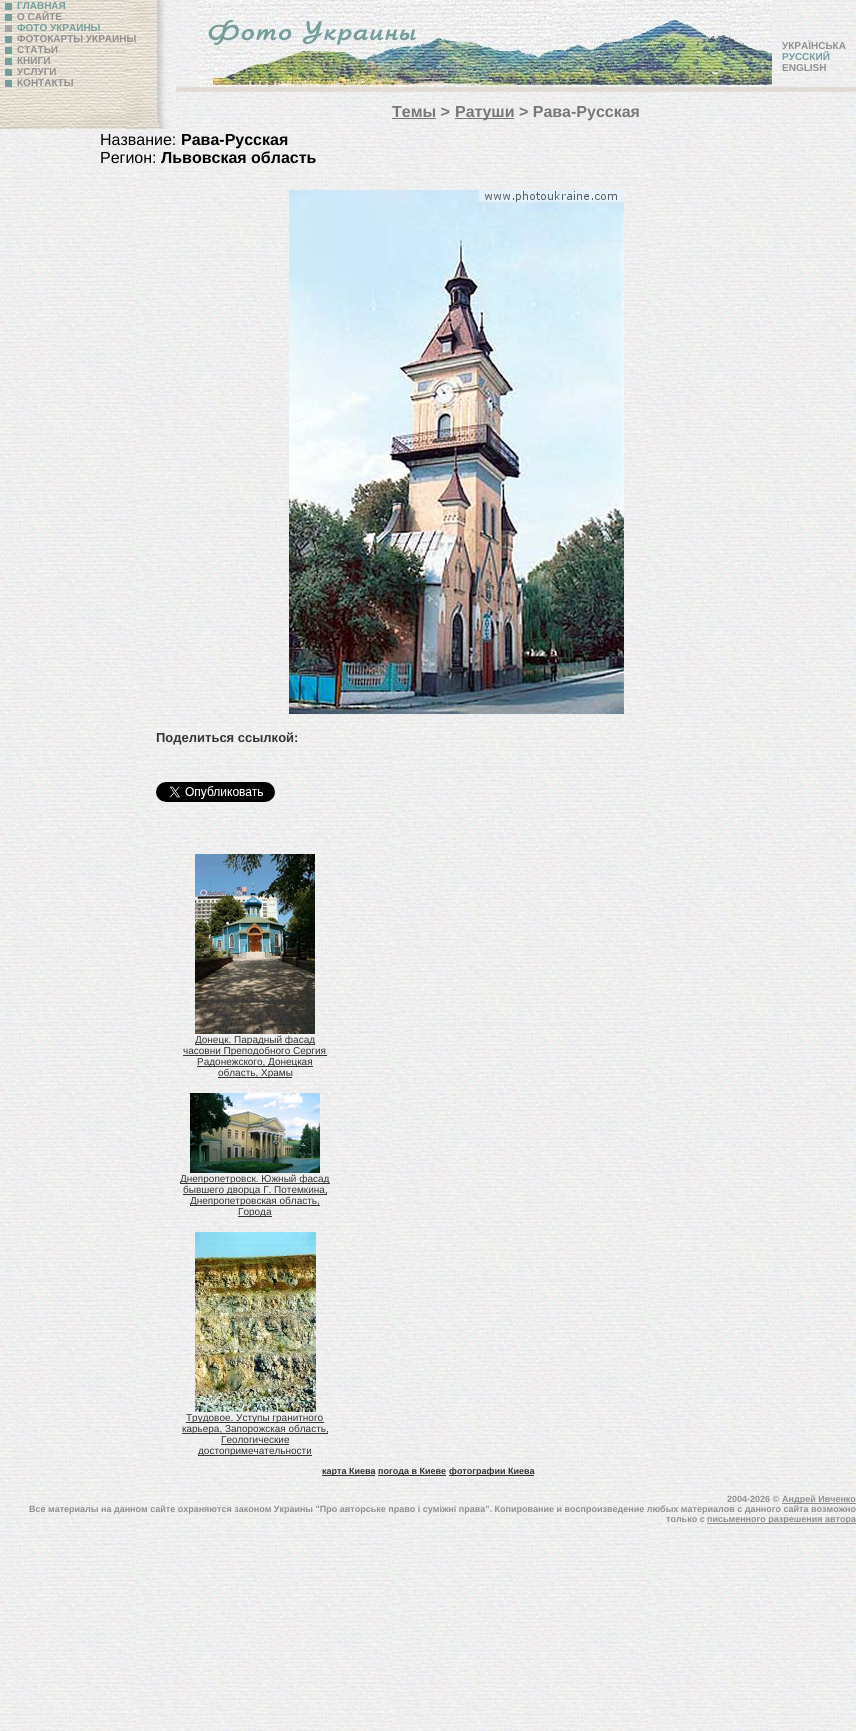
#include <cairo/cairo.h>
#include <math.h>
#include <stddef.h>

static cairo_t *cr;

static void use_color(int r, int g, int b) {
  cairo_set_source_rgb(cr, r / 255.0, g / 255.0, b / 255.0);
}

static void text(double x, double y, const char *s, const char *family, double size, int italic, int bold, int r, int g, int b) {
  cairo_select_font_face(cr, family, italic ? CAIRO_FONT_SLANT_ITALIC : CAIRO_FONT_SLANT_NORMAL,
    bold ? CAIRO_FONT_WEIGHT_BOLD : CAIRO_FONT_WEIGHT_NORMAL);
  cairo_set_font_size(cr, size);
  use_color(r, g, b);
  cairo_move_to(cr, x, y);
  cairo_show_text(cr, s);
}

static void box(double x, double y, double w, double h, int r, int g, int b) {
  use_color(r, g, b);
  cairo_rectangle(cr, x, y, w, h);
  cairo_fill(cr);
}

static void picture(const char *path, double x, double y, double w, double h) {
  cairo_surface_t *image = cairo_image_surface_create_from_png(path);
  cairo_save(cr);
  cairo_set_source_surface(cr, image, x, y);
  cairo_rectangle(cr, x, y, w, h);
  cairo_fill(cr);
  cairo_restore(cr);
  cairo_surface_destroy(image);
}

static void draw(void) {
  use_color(255, 255, 255);
  cairo_paint(cr);
  picture("img_01.png", 0, 0, 856, 1731);
  picture("img_02.png", 0, 0, 176, 129);
  box(5, 3, 7, 7, 115, 158, 156);
  box(5, 14, 7, 7, 115, 158, 156);
  box(5, 25, 7, 7, 165, 164, 164);
  box(5, 36, 7, 7, 115, 158, 156);
  box(5, 47, 7, 7, 115, 158, 156);
  box(5, 58, 7, 7, 115, 158, 156);
  box(5, 69, 7, 7, 115, 158, 156);
  box(5, 80, 7, 7, 115, 158, 156);
  picture("img_03.png", 198, 0, 574, 87);
  picture("img_04.png", 176, 87, 680, 5);
  box(392, 118, 44, 1, 119, 119, 119);
  box(455, 118, 59, 1, 119, 119, 119);
  picture("img_05.png", 289, 190, 335, 524);
  picture("img_06.png", 156, 782, 119, 20);
  picture("img_07.png", 195, 854, 120, 180);
  box(195, 1044, 120, 1, 51, 51, 51);
  box(183, 1055, 144, 1, 51, 51, 51);
  box(197, 1066, 116, 1, 51, 51, 51);
  box(218, 1077, 74, 1, 51, 51, 51);
  picture("img_08.png", 190, 1093, 130, 80);
  box(180, 1183, 150, 1, 51, 51, 51);
  box(183, 1194, 144, 1, 51, 51, 51);
  box(190, 1205, 130, 1, 51, 51, 51);
  box(238, 1216, 34, 1, 51, 51, 51);
  picture("img_09.png", 195, 1232, 121, 180);
  box(186, 1422, 138, 1, 51, 51, 51);
  box(182, 1433, 146, 1, 51, 51, 51);
  box(221, 1444, 68, 1, 51, 51, 51);
  box(198, 1455, 114, 1, 51, 51, 51);
  box(322, 1475, 53, 1, 51, 51, 51);
  box(378, 1475, 68, 1, 51, 51, 51);
  box(449, 1475, 85, 1, 51, 51, 51);
  box(782, 1503, 74, 1, 144, 143, 143);
  box(707, 1523, 149, 1, 144, 143, 143);
  text(17, 9, "ГЛАВНАЯ", "Liberation Sans", 10, 0, 1, 115, 158, 156);
  text(17, 20, "О САЙТЕ", "Liberation Sans", 10, 0, 1, 144, 143, 143);
  text(17, 31, "ФОТО УКРАИНЫ", "Liberation Sans", 10, 0, 1, 115, 158, 156);
  text(17, 42, "ФОТОКАРТЫ УКРАИНЫ", "Liberation Sans", 10, 0, 1, 144, 143, 143);
  text(17, 53, "СТАТЬИ", "Liberation Sans", 10, 0, 1, 144, 143, 143);
  text(17, 64, "КНИГИ", "Liberation Sans", 10, 0, 1, 144, 143, 143);
  text(17, 75, "УСЛУГИ", "Liberation Sans", 10, 0, 1, 144, 143, 143);
  text(17, 86, "КОНТАКТЫ", "Liberation Sans", 10, 0, 1, 144, 143, 143);
  text(782, 49, "УКРАЇНСЬКА", "Liberation Sans", 10, 0, 1, 144, 143, 143);
  text(782, 60, "РУССКИЙ", "Liberation Sans", 10, 0, 1, 115, 158, 156);
  text(782, 71, "ENGLISH", "Liberation Sans", 10, 0, 1, 144, 143, 143);
  text(392, 117, "Темы >", "Liberation Sans", 16, 0, 1, 119, 119, 119);
  text(455, 117, "Ратуши > Рава-Русская", "Liberation Sans", 16, 0, 1, 119, 119, 119);
  text(100, 145, "Название:", "Liberation Sans", 16, 0, 0, 0, 0, 0);
  text(181, 145, "Рава-Русская", "Liberation Sans", 16, 0, 1, 0, 0, 0);
  text(100, 163, "Регион:", "Liberation Sans", 16, 0, 0, 0, 0, 0);
  text(161, 163, "Львовская область", "Liberation Sans", 16, 0, 1, 0, 0, 0);
  text(156, 742, "Поделиться ссылкой:", "Liberation Sans", 13, 0, 1, 51, 51, 51);
  text(195, 1043, "Донецк. Парадный фасад", "Liberation Sans", 10, 0, 0, 51, 51, 51);
  text(183, 1054, "часовни Преподобного Сергия", "Liberation Sans", 10, 0, 0, 51, 51, 51);
  text(197, 1065, "Радонежского, Донецкая", "Liberation Sans", 10, 0, 0, 51, 51, 51);
  text(218, 1076, "область, Храмы", "Liberation Sans", 10, 0, 0, 51, 51, 51);
  text(180, 1182, "Днепропетровск. Южный фасад", "Liberation Sans", 10, 0, 0, 51, 51, 51);
  text(183, 1193, "бывшего дворца Г. Потемкина,", "Liberation Sans", 10, 0, 0, 51, 51, 51);
  text(190, 1204, "Днепропетровская область,", "Liberation Sans", 10, 0, 0, 51, 51, 51);
  text(238, 1215, "Города", "Liberation Sans", 10, 0, 0, 51, 51, 51);
  text(186, 1421, "Трудовое. Уступы гранитного", "Liberation Sans", 10, 0, 0, 51, 51, 51);
  text(182, 1432, "карьера, Запорожская область,", "Liberation Sans", 10, 0, 0, 51, 51, 51);
  text(221, 1443, "Геологические", "Liberation Sans", 10, 0, 0, 51, 51, 51);
  text(198, 1454, "достопримечательности", "Liberation Sans", 10, 0, 0, 51, 51, 51);
  text(322, 1474, "карта Киева", "Liberation Sans", 9, 0, 1, 51, 51, 51);
  text(378, 1474, "погода в Киеве", "Liberation Sans", 9, 0, 1, 51, 51, 51);
  text(449, 1474, "фотографии Киева", "Liberation Sans", 9, 0, 1, 51, 51, 51);
  text(727, 1502, "2004-2026 ©", "Liberation Sans", 9, 0, 1, 144, 143, 143);
  text(782, 1502, "Андрей Ивченко", "Liberation Sans", 9, 0, 1, 144, 143, 143);
  text(29, 1512, "Все материалы на данном сайте охраняются законом Украины \"Про авторське право і суміжні права\". Копирование и воспроизведение любых материалов с данного сайта возможно", "Liberation Sans", 9, 0, 1, 144, 143, 143);
  text(666, 1522, "только с", "Liberation Sans", 9, 0, 1, 144, 143, 143);
  text(707, 1522, "письменного разрешения автора", "Liberation Sans", 9, 0, 1, 144, 143, 143);
}

int main(void) {
  cairo_surface_t *surface = cairo_image_surface_create(CAIRO_FORMAT_RGB24, 856, 1731);
  cr = cairo_create(surface);
  cairo_font_options_t *options = cairo_font_options_create();
  cairo_font_options_set_hint_metrics(options, CAIRO_HINT_METRICS_OFF);
  cairo_font_options_set_hint_style(options, CAIRO_HINT_STYLE_NONE);
  cairo_set_font_options(cr, options);
  cairo_set_miter_limit(cr, 4);
  draw();
  cairo_surface_write_to_png(surface, "out.png");
  cairo_font_options_destroy(options);
  cairo_destroy(cr);
  cairo_surface_destroy(surface);
  return 0;
}
